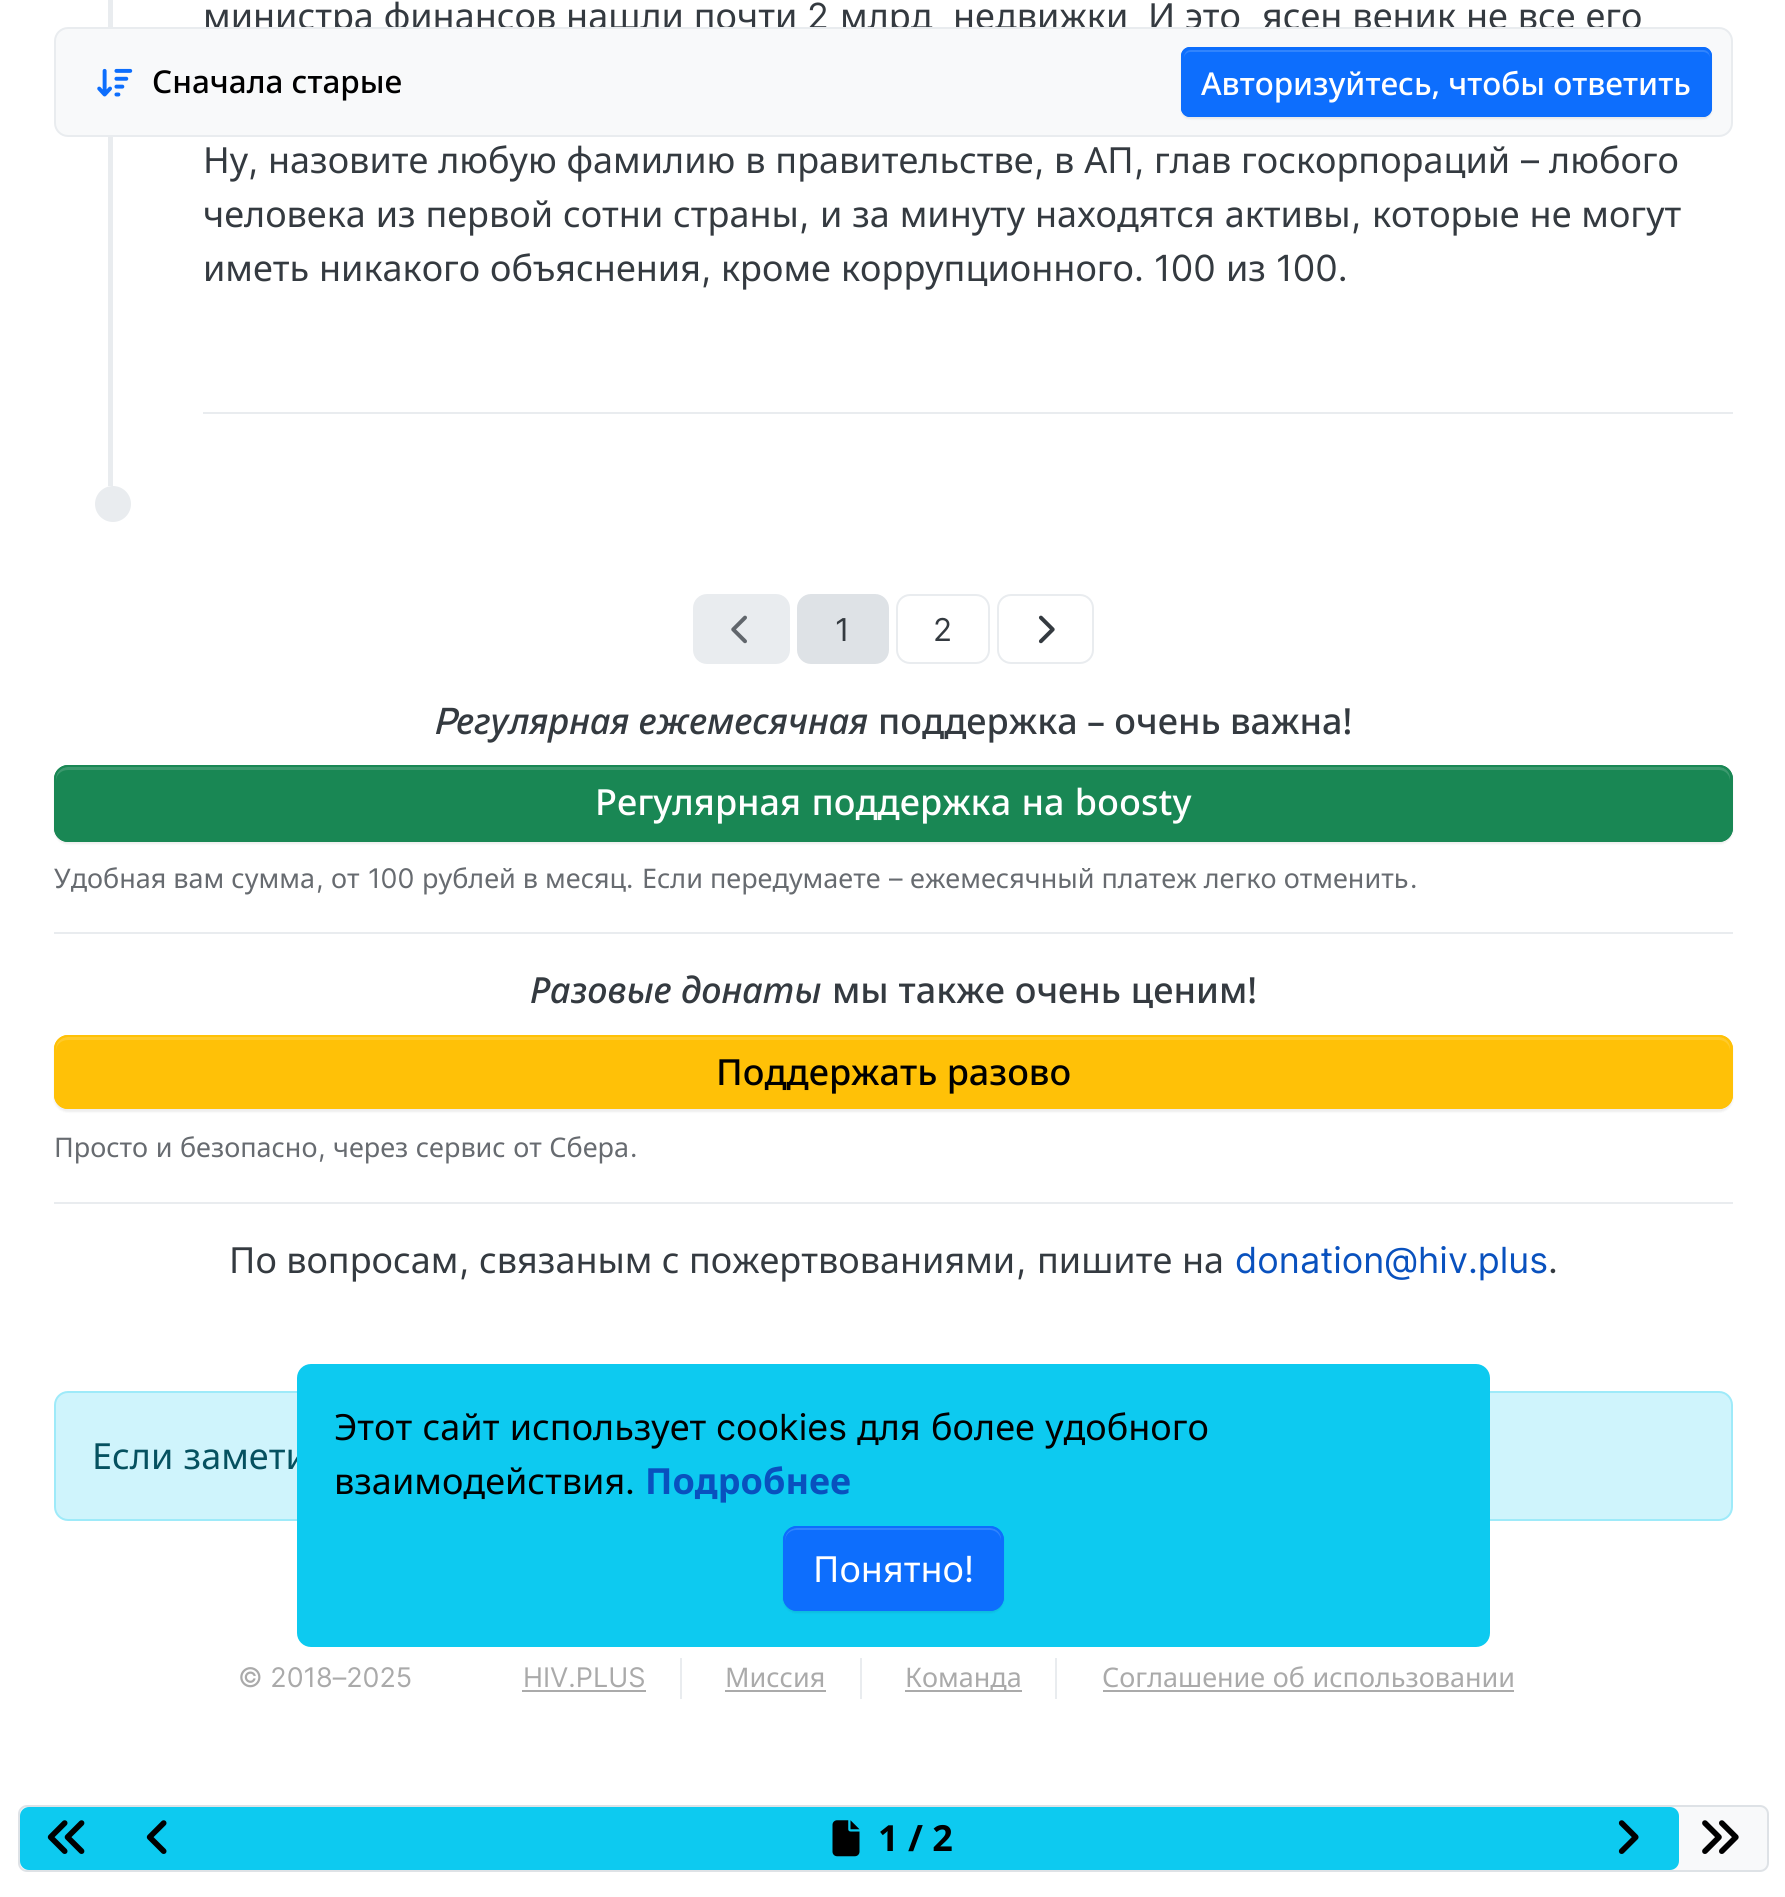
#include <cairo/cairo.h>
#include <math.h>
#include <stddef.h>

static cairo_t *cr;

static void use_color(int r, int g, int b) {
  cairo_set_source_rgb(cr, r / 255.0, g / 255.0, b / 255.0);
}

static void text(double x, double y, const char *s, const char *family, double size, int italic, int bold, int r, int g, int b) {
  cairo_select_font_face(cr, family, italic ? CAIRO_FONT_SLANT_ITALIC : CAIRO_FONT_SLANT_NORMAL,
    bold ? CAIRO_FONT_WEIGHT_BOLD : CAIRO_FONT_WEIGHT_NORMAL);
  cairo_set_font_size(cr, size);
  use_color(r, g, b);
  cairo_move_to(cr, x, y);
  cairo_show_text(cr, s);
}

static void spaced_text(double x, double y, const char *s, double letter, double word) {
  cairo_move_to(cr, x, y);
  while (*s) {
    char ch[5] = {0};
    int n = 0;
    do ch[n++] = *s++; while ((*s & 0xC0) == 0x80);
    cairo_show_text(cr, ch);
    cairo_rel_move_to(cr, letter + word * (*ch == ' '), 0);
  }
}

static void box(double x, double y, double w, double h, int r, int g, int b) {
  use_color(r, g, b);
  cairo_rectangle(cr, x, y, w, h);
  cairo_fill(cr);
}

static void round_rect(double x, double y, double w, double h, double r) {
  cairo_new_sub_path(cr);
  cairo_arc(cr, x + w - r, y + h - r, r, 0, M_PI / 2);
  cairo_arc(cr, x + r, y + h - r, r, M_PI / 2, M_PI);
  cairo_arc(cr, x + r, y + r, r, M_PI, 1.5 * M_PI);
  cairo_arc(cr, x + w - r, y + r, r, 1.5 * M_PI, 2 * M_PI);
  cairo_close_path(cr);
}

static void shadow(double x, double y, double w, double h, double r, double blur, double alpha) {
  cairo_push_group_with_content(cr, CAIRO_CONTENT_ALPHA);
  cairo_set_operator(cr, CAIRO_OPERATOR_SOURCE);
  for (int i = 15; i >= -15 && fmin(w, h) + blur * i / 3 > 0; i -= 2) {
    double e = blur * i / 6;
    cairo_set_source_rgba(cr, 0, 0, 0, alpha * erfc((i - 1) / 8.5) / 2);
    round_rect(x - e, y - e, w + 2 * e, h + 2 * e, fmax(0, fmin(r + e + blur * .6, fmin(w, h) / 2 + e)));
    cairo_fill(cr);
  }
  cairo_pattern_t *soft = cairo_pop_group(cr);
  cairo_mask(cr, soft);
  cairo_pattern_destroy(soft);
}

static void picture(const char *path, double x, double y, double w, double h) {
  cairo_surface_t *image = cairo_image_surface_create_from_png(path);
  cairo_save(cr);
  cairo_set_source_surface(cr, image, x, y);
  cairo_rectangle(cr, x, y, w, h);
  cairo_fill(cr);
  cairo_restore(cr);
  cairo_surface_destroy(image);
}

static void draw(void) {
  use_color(255, 255, 255);
  cairo_paint(cr);
  box(108, 0, 5, 486, 233, 236, 239);
  box(203, 412, 1530, 2, 233, 236, 239);
  cairo_arc(cr, 113, 504, 18, 0, 2 * M_PI);
  cairo_fill(cr);
  round_rect(694, 595, 95, 68, 13);
  cairo_fill_preserve(cr);
  cairo_stroke(cr);
  picture("img_02.png", 731, 615, 16, 29);
  use_color(222, 226, 230);
  round_rect(798, 595, 90, 68, 13);
  cairo_fill_preserve(cr);
  cairo_stroke(cr);
  round_rect(897, 595, 92, 68, 13);
  use_color(233, 236, 239);
  cairo_stroke(cr);
  round_rect(998, 595, 95, 68, 13);
  cairo_stroke(cr);
  picture("img_03.png", 1038, 615, 17, 29);
  use_color(0, 0, 0);
  shadow(54, 767, 1679, 77, 14, 1, 0.07);
  use_color(25, 135, 84);
  round_rect(54, 765, 1679, 77, 14);
  cairo_fill(cr);
  use_color(60, 153, 110);
  cairo_new_path(cr);
  cairo_move_to(cr, 68, 770);
  cairo_line_to(cr, 1719, 770);
  cairo_curve_to(cr, 1725, 770, 1730, 775, 1730, 781);
  cairo_line_to(cr, 1730, 778);
  cairo_curve_to(cr, 1730, 772, 1725, 767, 1719, 767);
  cairo_line_to(cr, 67, 767);
  cairo_curve_to(cr, 61, 767, 56, 772, 56, 778);
  cairo_line_to(cr, 56, 781);
  cairo_curve_to(cr, 56, 775, 61, 770, 68, 770);
  cairo_close_path(cr);
  cairo_fill(cr);
  round_rect(55, 766, 1677, 75, 13);
  use_color(25, 135, 84);
  cairo_stroke(cr);
  box(54, 932, 1679, 2, 233, 236, 239);
  use_color(0, 0, 0);
  shadow(54, 1037, 1679, 75, 14, 1, 0.07);
  use_color(255, 193, 7);
  round_rect(54, 1035, 1679, 74, 14);
  cairo_fill(cr);
  use_color(255, 202, 44);
  cairo_new_path(cr);
  cairo_move_to(cr, 68, 1040);
  cairo_line_to(cr, 1719, 1040);
  cairo_curve_to(cr, 1725, 1040, 1730, 1045, 1730, 1051);
  cairo_line_to(cr, 1730, 1048);
  cairo_curve_to(cr, 1730, 1042, 1725, 1037, 1719, 1037);
  cairo_line_to(cr, 67, 1037);
  cairo_curve_to(cr, 61, 1037, 56, 1042, 56, 1048);
  cairo_line_to(cr, 56, 1051);
  cairo_curve_to(cr, 56, 1045, 61, 1040, 68, 1040);
  cairo_close_path(cr);
  cairo_fill(cr);
  round_rect(55, 1036, 1677, 72, 13);
  use_color(255, 193, 7);
  cairo_stroke(cr);
  box(54, 1202, 1679, 2, 233, 236, 239);
  use_color(207, 244, 252);
  round_rect(55, 1392, 1677, 128, 13);
  cairo_fill_preserve(cr);
  use_color(158, 234, 249);
  cairo_stroke(cr);
  box(680, 1658, 2, 41, 233, 236, 239);
  box(522, 1690, 124, 2, 170, 170, 170);
  box(860, 1658, 2, 41, 233, 236, 239);
  box(725, 1690, 101, 2, 170, 170, 170);
  box(1055, 1658, 2, 41, 233, 236, 239);
  box(905, 1690, 117, 2, 170, 170, 170);
  box(1103, 1690, 411, 2, 170, 170, 170);
  use_color(248, 249, 250);
  round_rect(19, 1806, 1749, 65, 8);
  cairo_fill_preserve(cr);
  use_color(222, 226, 230);
  cairo_stroke(cr);
  use_color(13, 202, 240);
  round_rect(20, 1807, 1659, 63, 9);
  cairo_fill(cr);
  picture("img_04.png", 47, 1820, 38, 34);
  picture("img_05.png", 146, 1820, 21, 34);
  picture("img_06.png", 832, 1820, 28, 37);
  picture("img_07.png", 1618, 1820, 21, 34);
  picture("img_08.png", 1702, 1820, 37, 34);
  cairo_select_font_face(cr, "Noto Sans", CAIRO_FONT_SLANT_NORMAL, CAIRO_FONT_WEIGHT_NORMAL);
  cairo_set_font_size(cr, 36);
  use_color(52, 58, 64);
  spaced_text(203, 29, "министра финансов нашли почти", 0, 0.5);
  text(807, 29, "2", "Inter", 36, 0, 0, 52, 58, 64);
  text(840, 29, "млрд", "Noto Sans", 36, 0, 0, 52, 58, 64);
  text(953, 29, "недвижки", "Noto Sans", 36, 0, 0, 52, 58, 64);
  spaced_text(1148, 29, "И это", 0, 0.5);
  spaced_text(1262, 29, "ясен веник не все его", 0, 0.5);
  text(203, 173, "Ну", "Noto Sans", 36, 0, 0, 52, 58, 64);
  spaced_text(268, 173, "назовите любую фамилию в правительстве", 0, 0.5);
  spaced_text(1054, 173, "в АП", 0, 0.5);
  spaced_text(1154, 173, "глав госкорпораций", 0, 0.5);
  text(1521, 173, "–", "Inter", 36, 0, 0, 52, 58, 64);
  text(1549, 173, "любого", "Noto Sans", 36, 0, 0, 52, 58, 64);
  text(248, 173, ",", "Inter", 36, 0, 0, 52, 58, 64);
  text(1034, 173, ",", "Inter", 36, 0, 0, 52, 58, 64);
  text(1134, 173, ",", "Inter", 36, 0, 0, 52, 58, 64);
  cairo_select_font_face(cr, "Noto Sans", CAIRO_FONT_SLANT_NORMAL, CAIRO_FONT_WEIGHT_NORMAL);
  spaced_text(203, 227, "человека из первой сотни страны", 0, 0.5);
  text(799, 227, ",", "Inter", 36, 0, 0, 52, 58, 64);
  cairo_select_font_face(cr, "Noto Sans", CAIRO_FONT_SLANT_NORMAL, CAIRO_FONT_WEIGHT_NORMAL);
  spaced_text(820, 227, "и за минуту находятся активы", 0, 0.5);
  text(1351, 227, ",", "Inter", 36, 0, 0, 52, 58, 64);
  cairo_select_font_face(cr, "Noto Sans", CAIRO_FONT_SLANT_NORMAL, CAIRO_FONT_WEIGHT_NORMAL);
  spaced_text(1372, 227, "которые не могут", 0, 0.5);
  text(203, 281, "иметь", "Noto Sans", 36, 0, 0, 52, 58, 64);
  text(319, 281, "никакого", "Noto Sans", 36, 0, 0, 52, 58, 64);
  text(490, 281, "объяснения", "Noto Sans", 36, 0, 0, 52, 58, 64);
  text(701, 281, ",", "Inter", 36, 0, 0, 52, 58, 64);
  text(721, 281, "кроме", "Noto Sans", 36, 0, 0, 52, 58, 64);
  text(841, 281, "коррупционного", "Noto Sans", 36, 0, 0, 52, 58, 64);
  text(1134, 281, ". 100", "Inter", 36, 0, 0, 52, 58, 64);
  text(1226, 281, "из", "Noto Sans", 36, 0, 0, 52, 58, 64);
  text(1276, 281, "100.", "Inter", 36, 0, 0, 52, 58, 64);
  use_color(248, 249, 250);
  round_rect(55, 28, 1677, 108, 13);
  cairo_fill_preserve(cr);
  use_color(233, 236, 239);
  cairo_stroke(cr);
  picture("img_01.png", 97, 68, 36, 29);
  text(152, 93, "Сначала старые", "Noto Sans Medium", 31.5, 0, 0, 0, 0, 0);
  use_color(0, 0, 0);
  shadow(1181, 50, 531, 69, 9, 1, 0.07);
  use_color(13, 110, 253);
  round_rect(1181, 47, 531, 70, 9);
  cairo_fill(cr);
  use_color(49, 132, 253);
  cairo_new_path(cr);
  cairo_move_to(cr, 1190, 52);
  cairo_line_to(cr, 1703, 52);
  cairo_curve_to(cr, 1707, 52, 1710, 55, 1710, 58);
  cairo_curve_to(cr, 1710, 54, 1708, 50, 1703, 50);
  cairo_line_to(cr, 1191, 50);
  cairo_curve_to(cr, 1186, 50, 1184, 54, 1184, 58);
  cairo_curve_to(cr, 1184, 55, 1187, 52, 1190, 52);
  cairo_close_path(cr);
  cairo_fill(cr);
  round_rect(1182, 48, 529, 68, 8);
  use_color(13, 110, 253);
  cairo_stroke(cr);
  text(1201, 95, "Авторизуйтесь, чтобы ответить", "Noto Sans Medium", 31.5, 0, 0, 255, 255, 255);
  text(835, 641, "1", "Inter", 31.5, 0, 0, 52, 58, 64);
  text(933, 641, "2", "Inter", 31.5, 0, 0, 52, 58, 64);
  text(433, 734, "P", "Inter Medium", 36, 1, 0, 52, 58, 64);
  text(456, 734, "егулярная ежемесячная", "Noto Sans Medium", 36, 1, 0, 52, 58, 64);
  text(878, 734, "поддержка – очень важна!", "Noto Sans Medium", 36, 0, 0, 52, 58, 64);
  use_color(255, 255, 255);
  spaced_text(595, 815, "Регулярная поддержка на boosty", 0, 1);
  text(54, 888, "Удобная вам сумма", "Noto Sans", 27, 0, 0, 103, 107, 112);
  text(331, 888, "от", "Noto Sans", 27, 0, 0, 103, 107, 112);
  text(368, 888, "100", "Inter", 27, 0, 0, 103, 107, 112);
  text(422, 888, "рублей в месяц", "Noto Sans", 27, 0, 0, 103, 107, 112);
  text(642, 888, "Если передумаете", "Noto Sans", 27, 0, 0, 103, 107, 112);
  text(889, 888, "–", "Inter", 27, 0, 0, 103, 107, 112);
  text(910, 888, "ежемесячный платеж легко отменить", "Noto Sans", 27, 0, 0, 103, 107, 112);
  text(316, 888, ",", "Inter", 27, 0, 0, 103, 107, 112);
  text(626, 888, ".", "Inter", 27, 0, 0, 103, 107, 112);
  text(1410, 888, ".", "Inter", 27, 0, 0, 103, 107, 112);
  text(530, 1003, "Разовые донаты", "Noto Sans Medium", 36, 1, 0, 52, 58, 64);
  cairo_select_font_face(cr, "Noto Sans Medium", CAIRO_FONT_SLANT_NORMAL, CAIRO_FONT_WEIGHT_NORMAL);
  spaced_text(832, 1003, "мы также очень ценим!", 0, 0.5);
  text(716, 1085, "Поддержать разово", "Noto Sans Medium", 36, 0, 0, 0, 0, 0);
  cairo_select_font_face(cr, "Noto Sans", CAIRO_FONT_SLANT_NORMAL, CAIRO_FONT_WEIGHT_NORMAL);
  cairo_set_font_size(cr, 27);
  use_color(103, 107, 112);
  spaced_text(54, 1157, "Просто и безопасно", 0, 0.5);
  text(318, 1157, ",", "Inter", 27, 0, 0, 103, 107, 112);
  cairo_select_font_face(cr, "Noto Sans", CAIRO_FONT_SLANT_NORMAL, CAIRO_FONT_WEIGHT_NORMAL);
  spaced_text(333, 1157, "через сервис от Сбера", 0, 0.5);
  text(630, 1157, ".", "Inter", 27, 0, 0, 103, 107, 112);
  text(229, 1273, "По вопросам", "Noto Sans", 36, 0, 0, 52, 58, 64);
  text(459, 1273, ",", "Inter", 36, 0, 0, 52, 58, 64);
  text(479, 1273, "связаным с пожертвованиями", "Noto Sans", 36, 0, 0, 52, 58, 64);
  text(1016, 1273, ",", "Inter", 36, 0, 0, 52, 58, 64);
  text(1037, 1273, "пишите", "Noto Sans", 36, 0, 0, 52, 58, 64);
  text(1182, 1273, "на", "Noto Sans", 36, 0, 0, 52, 58, 64);
  text(1235, 1273, "donation@hiv.plus", "Inter", 36, 0, 0, 9, 81, 190);
  text(1548, 1273, ".", "Inter", 36, 0, 0, 52, 58, 64);
  cairo_select_font_face(cr, "Noto Sans", CAIRO_FONT_SLANT_NORMAL, CAIRO_FONT_WEIGHT_NORMAL);
  use_color(5, 81, 96);
  spaced_text(92, 1469, "Если замети", 0, 1);
  text(238, 1687, "© 2018–2025", "Inter", 27, 0, 0, 170, 170, 170);
  text(523, 1687, "HIV.PLUS", "Inter", 27, 0, 0, 170, 170, 170);
  text(725, 1687, "Миссия", "Noto Sans", 27, 0, 0, 170, 170, 170);
  text(905, 1687, "Команда", "Noto Sans", 27, 0, 0, 170, 170, 170);
  spaced_text(1102, 1687, "Соглашение об использовании", 0, 0.5);
  use_color(13, 202, 240);
  round_rect(297, 1364, 1193, 283, 14);
  cairo_fill(cr);
  cairo_set_font_size(cr, 36);
  use_color(0, 0, 0);
  spaced_text(334, 1440, "Этот сайт использует", 0, 1);
  text(716, 1440, "cookies", "Inter", 36, 0, 0, 0, 0, 0);
  cairo_select_font_face(cr, "Noto Sans", CAIRO_FONT_SLANT_NORMAL, CAIRO_FONT_WEIGHT_NORMAL);
  spaced_text(857, 1440, "для более удобного", 0, 1);
  text(334, 1494, "взаимодействия", "Noto Sans", 36, 0, 0, 0, 0, 0);
  text(625, 1494, ".", "Inter", 36, 0, 0, 0, 0, 0);
  text(645, 1494, "Подробнее", "Noto Sans", 36, 0, 1, 9, 81, 190);
  use_color(0, 0, 0);
  shadow(783, 1528, 221, 85, 14, 1, 0.07);
  use_color(13, 110, 253);
  round_rect(783, 1526, 221, 85, 14);
  cairo_fill(cr);
  use_color(49, 132, 253);
  cairo_new_path(cr);
  cairo_move_to(cr, 796, 1530);
  cairo_line_to(cr, 990, 1530);
  cairo_curve_to(cr, 996, 1530, 1001, 1535, 1001, 1541);
  cairo_line_to(cr, 1001, 1539);
  cairo_curve_to(cr, 1001, 1533, 996, 1528, 990, 1528);
  cairo_line_to(cr, 796, 1528);
  cairo_curve_to(cr, 790, 1528, 785, 1533, 785, 1539);
  cairo_line_to(cr, 785, 1541);
  cairo_curve_to(cr, 785, 1535, 790, 1530, 796, 1530);
  cairo_close_path(cr);
  cairo_fill(cr);
  round_rect(784, 1527, 219, 83, 13);
  use_color(13, 110, 253);
  cairo_stroke(cr);
  text(813, 1582, "Понятно", "Noto Sans", 36, 0, 0, 255, 255, 255);
  text(964, 1582, "!", "Inter", 36, 0, 0, 255, 255, 255);
  text(878, 1851, "1 / 2", "Noto Sans", 36, 0, 1, 0, 0, 0);
}

int main(void) {
  cairo_surface_t *surface = cairo_image_surface_create(CAIRO_FORMAT_RGB24, 1785, 1897);
  cr = cairo_create(surface);
  cairo_font_options_t *options = cairo_font_options_create();
  cairo_font_options_set_hint_metrics(options, CAIRO_HINT_METRICS_OFF);
  cairo_font_options_set_hint_style(options, CAIRO_HINT_STYLE_NONE);
  cairo_set_font_options(cr, options);
  cairo_set_miter_limit(cr, 4);
  draw();
  cairo_surface_write_to_png(surface, "out.png");
  cairo_font_options_destroy(options);
  cairo_destroy(cr);
  cairo_surface_destroy(surface);
  return 0;
}
